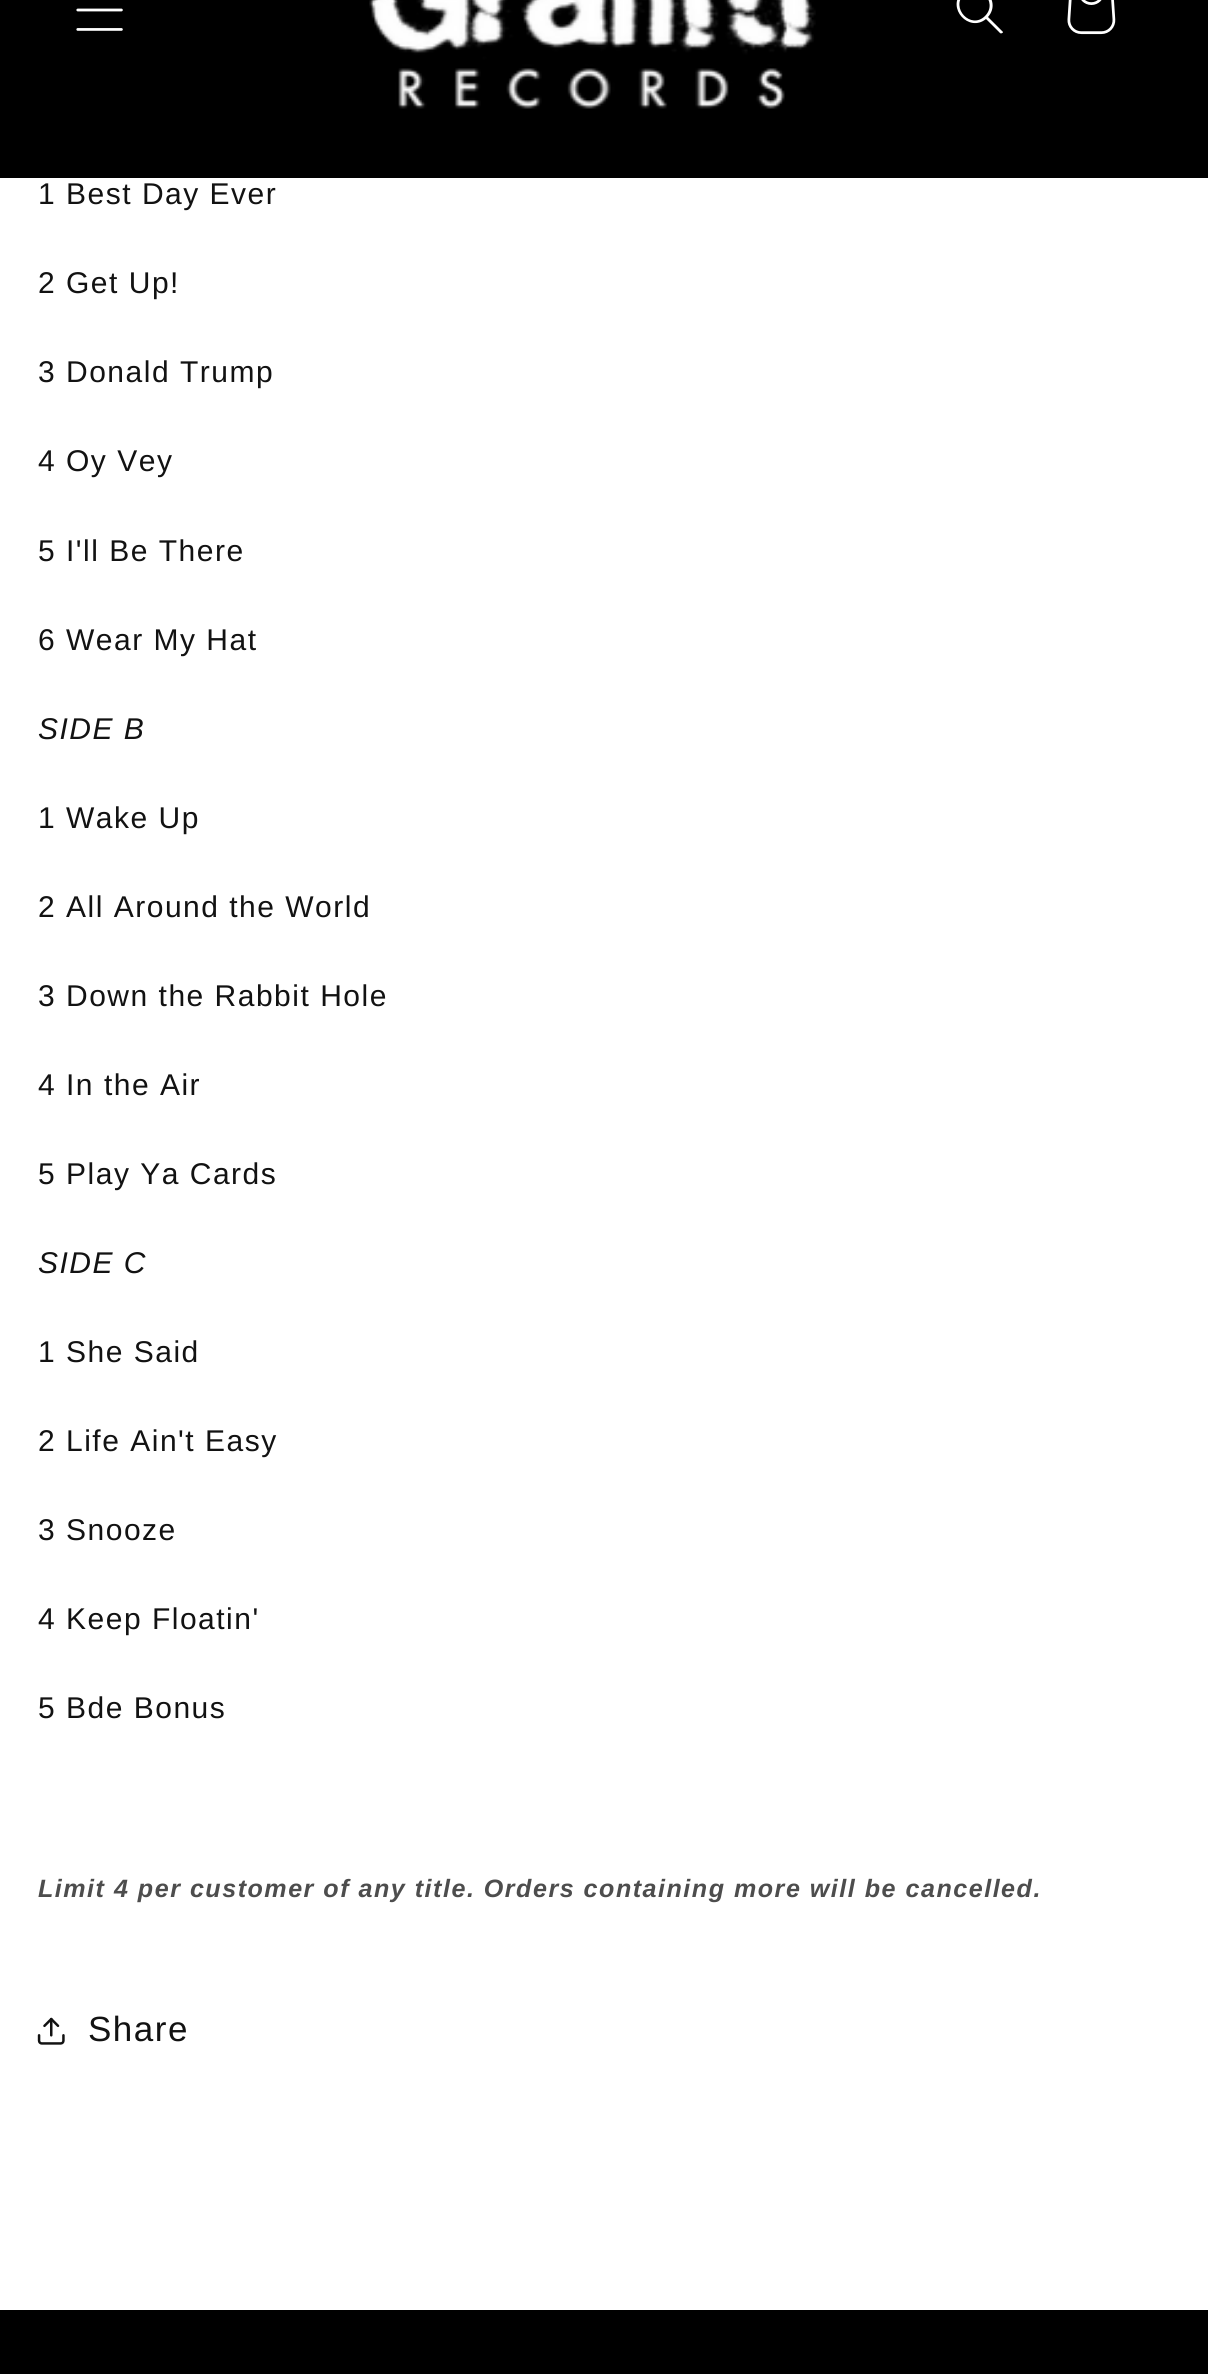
#include <cairo/cairo.h>
#include <math.h>
#include <stddef.h>

static cairo_t *cr;

static void use_color(int r, int g, int b) {
  cairo_set_source_rgb(cr, r / 255.0, g / 255.0, b / 255.0);
}

static void spaced_text(double x, double y, const char *s, double letter, double word) {
  cairo_move_to(cr, x, y);
  while (*s) {
    char ch[5] = {0};
    int n = 0;
    do ch[n++] = *s++; while ((*s & 0xC0) == 0x80);
    cairo_show_text(cr, ch);
    cairo_rel_move_to(cr, letter + word * (*ch == ' '), 0);
  }
}

static void box(double x, double y, double w, double h, int r, int g, int b) {
  use_color(r, g, b);
  cairo_rectangle(cr, x, y, w, h);
  cairo_fill(cr);
}

static void picture(const char *path, double x, double y, double w, double h) {
  cairo_surface_t *image = cairo_image_surface_create_from_png(path);
  cairo_save(cr);
  cairo_set_source_surface(cr, image, x, y);
  cairo_rectangle(cr, x, y, w, h);
  cairo_fill(cr);
  cairo_restore(cr);
  cairo_surface_destroy(image);
}

static void draw(void) {
  use_color(255, 255, 255);
  cairo_paint(cr);
  box(0, 0, 1208, 178, 0, 0, 0);
  picture("img_01.png", 76, 8, 47, 23);
  picture("img_02.png", 369, 0, 447, 109);
  use_color(255, 255, 255);
  cairo_set_fill_rule(cr, CAIRO_FILL_RULE_EVEN_ODD);
  cairo_new_path(cr);
  cairo_move_to(cr, 985, 16);
  cairo_curve_to(cr, 971, 30, 950, 8, 964, -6);
  cairo_curve_to(cr, 978, -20, 999, 2, 985, 16);
  cairo_move_to(cr, 986, 19);
  cairo_curve_to(cr, 969, 33, 946, 8, 962, -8);
  cairo_curve_to(cr, 978, -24, 1003, 0, 988, 17);
  cairo_line_to(cr, 1003, 32);
  cairo_curve_to(cr, 1003, 33, 1001, 34, 1000, 33);
  cairo_close_path(cr);
  cairo_fill(cr);
  picture("img_03.png", 1067, 0, 49, 35);
  picture("img_04.png", 37, 2017, 28, 28);
  box(0, 2310, 1208, 64, 0, 0, 0);
  cairo_select_font_face(cr, "Liberation Sans", CAIRO_FONT_SLANT_NORMAL, CAIRO_FONT_WEIGHT_NORMAL);
  cairo_set_font_size(cr, 30);
  use_color(18, 18, 18);
  spaced_text(38, 204, "1 Best Day Ever", 1.5, 0);
  spaced_text(38, 293, "2 Get Up!", 1.5, 0);
  spaced_text(38, 382, "3 Donald Trump", 1.5, 0);
  spaced_text(38, 471, "4 Oy Vey", 1.5, 0);
  spaced_text(38, 561, "5 I'll Be There", 1.5, 0);
  spaced_text(38, 650, "6 Wear My Hat", 1.5, 0);
  cairo_select_font_face(cr, "Liberation Sans", CAIRO_FONT_SLANT_ITALIC, CAIRO_FONT_WEIGHT_NORMAL);
  spaced_text(38, 739, "SIDE B", 1.5, 0);
  cairo_select_font_face(cr, "Liberation Sans", CAIRO_FONT_SLANT_NORMAL, CAIRO_FONT_WEIGHT_NORMAL);
  spaced_text(38, 828, "1 Wake Up", 1.5, 0);
  spaced_text(38, 917, "2 All Around the World", 1.5, 0);
  spaced_text(38, 1006, "3 Down the Rabbit Hole", 1.5, 0);
  spaced_text(38, 1095, "4 In the Air", 1.5, 0);
  spaced_text(38, 1184, "5 Play Ya Cards", 1.5, 0);
  cairo_select_font_face(cr, "Liberation Sans", CAIRO_FONT_SLANT_ITALIC, CAIRO_FONT_WEIGHT_NORMAL);
  spaced_text(38, 1273, "SIDE C", 1.5, 0);
  cairo_select_font_face(cr, "Liberation Sans", CAIRO_FONT_SLANT_NORMAL, CAIRO_FONT_WEIGHT_NORMAL);
  spaced_text(38, 1362, "1 She Said", 1.5, 0);
  spaced_text(38, 1451, "2 Life Ain't Easy", 1.5, 0);
  spaced_text(38, 1540, "3 Snooze", 1.5, 0);
  spaced_text(38, 1629, "4 Keep Floatin'", 1.5, 0);
  spaced_text(38, 1718, "5 Bde Bonus", 1.5, 0);
  cairo_select_font_face(cr, "Liberation Sans", CAIRO_FONT_SLANT_ITALIC, CAIRO_FONT_WEIGHT_BOLD);
  cairo_set_font_size(cr, 25.1);
  use_color(77, 77, 77);
  spaced_text(38, 1897, "Limit 4 per customer of any title. Orders containing more will be cancelled.", 1.5, 0);
  cairo_select_font_face(cr, "Liberation Sans", CAIRO_FONT_SLANT_NORMAL, CAIRO_FONT_WEIGHT_NORMAL);
  cairo_set_font_size(cr, 35);
  use_color(18, 18, 18);
  spaced_text(88, 2041, "Share", 1.5, 0);
}

int main(void) {
  cairo_surface_t *surface = cairo_image_surface_create(CAIRO_FORMAT_RGB24, 1208, 2374);
  cr = cairo_create(surface);
  cairo_font_options_t *options = cairo_font_options_create();
  cairo_font_options_set_hint_metrics(options, CAIRO_HINT_METRICS_OFF);
  cairo_font_options_set_hint_style(options, CAIRO_HINT_STYLE_NONE);
  cairo_set_font_options(cr, options);
  cairo_set_miter_limit(cr, 4);
  draw();
  cairo_surface_write_to_png(surface, "out.png");
  cairo_font_options_destroy(options);
  cairo_destroy(cr);
  cairo_surface_destroy(surface);
  return 0;
}
